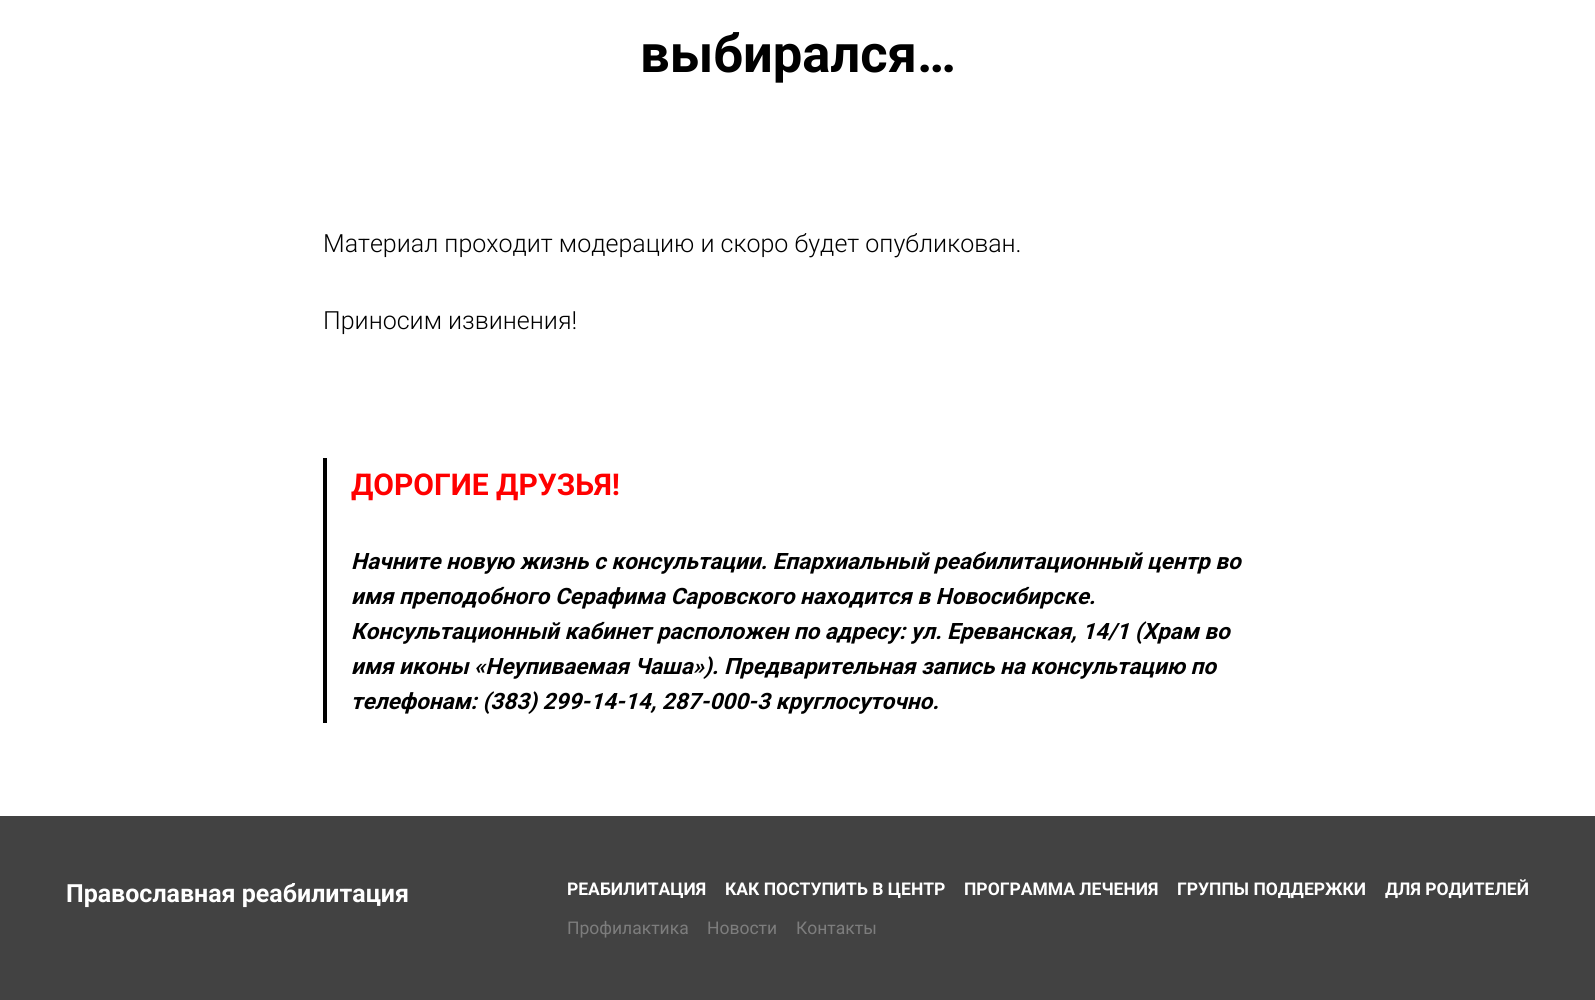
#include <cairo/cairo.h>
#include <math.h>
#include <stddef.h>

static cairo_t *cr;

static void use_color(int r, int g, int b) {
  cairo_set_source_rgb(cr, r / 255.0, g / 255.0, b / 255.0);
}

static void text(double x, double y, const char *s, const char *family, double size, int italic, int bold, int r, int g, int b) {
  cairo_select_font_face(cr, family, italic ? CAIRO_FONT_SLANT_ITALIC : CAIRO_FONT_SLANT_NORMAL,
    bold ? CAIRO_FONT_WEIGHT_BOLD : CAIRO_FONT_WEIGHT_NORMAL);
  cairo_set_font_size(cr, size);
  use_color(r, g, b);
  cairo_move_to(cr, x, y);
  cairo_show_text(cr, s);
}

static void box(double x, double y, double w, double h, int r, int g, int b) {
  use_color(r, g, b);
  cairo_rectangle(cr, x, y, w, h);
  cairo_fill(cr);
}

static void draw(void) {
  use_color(255, 255, 255);
  cairo_paint(cr);
  box(323, 458, 4, 265, 0, 0, 0);
  box(0, 816, 1595, 184, 66, 66, 66);
  text(640, 72, "выбирался…", "Roboto", 52.5, 0, 1, 0, 0, 0);
  text(323, 252, "Материал проходит модерацию и скоро будет опубликован.", "Roboto Light", 25, 0, 0, 0, 0, 0);
  text(323, 329, "Приносим извинения!", "Roboto Light", 25, 0, 0, 0, 0, 0);
  text(351, 495, "ДОРОГИЕ ДРУЗЬЯ!", "Roboto", 30, 0, 1, 255, 0, 0);
  text(351, 569, "Начните новую жизнь с консультации. Епархиальный реабилитационный центр во", "Roboto", 22.5, 1, 1, 0, 0, 0);
  text(351, 604, "имя преподобного Серафима Саровского находится в Новосибирске.", "Roboto", 22.5, 1, 1, 0, 0, 0);
  text(351, 639, "Консультационный кабинет расположен по адресу: ул. Ереванская, 14/1 (Храм во", "Roboto", 22.5, 1, 1, 0, 0, 0);
  text(351, 674, "имя иконы «Неупиваемая Чаша»). Предварительная запись на консультацию по", "Roboto", 22.5, 1, 1, 0, 0, 0);
  text(351, 709, "телефонам: (383) 299-14-14, 287-000-3 круглосуточно.", "Roboto", 22.5, 1, 1, 0, 0, 0);
  text(66, 902, "Православная реабилитация", "Roboto", 25, 0, 1, 255, 255, 255);
  text(567, 895, "РЕАБИЛИТАЦИЯ", "Roboto", 17.5, 0, 1, 255, 255, 255);
  text(725, 895, "КАК ПОСТУПИТЬ В ЦЕНТР", "Roboto", 17.5, 0, 1, 255, 255, 255);
  text(964, 895, "ПРОГРАММА ЛЕЧЕНИЯ", "Roboto", 17.5, 0, 1, 255, 255, 255);
  text(1177, 895, "ГРУППЫ ПОДДЕРЖКИ", "Roboto", 17.5, 0, 1, 255, 255, 255);
  text(1385, 895, "ДЛЯ РОДИТЕЛЕЙ", "Roboto", 17.5, 0, 1, 255, 255, 255);
  text(567, 934, "Профилактика", "Roboto", 17.5, 0, 0, 125, 125, 125);
  text(707, 934, "Новости", "Roboto", 17.5, 0, 0, 125, 125, 125);
  text(796, 934, "Контакты", "Roboto", 17.5, 0, 0, 125, 125, 125);
}

int main(void) {
  cairo_surface_t *surface = cairo_image_surface_create(CAIRO_FORMAT_RGB24, 1595, 1000);
  cr = cairo_create(surface);
  cairo_font_options_t *options = cairo_font_options_create();
  cairo_font_options_set_hint_metrics(options, CAIRO_HINT_METRICS_OFF);
  cairo_font_options_set_hint_style(options, CAIRO_HINT_STYLE_NONE);
  cairo_set_font_options(cr, options);
  cairo_set_miter_limit(cr, 4);
  draw();
  cairo_surface_write_to_png(surface, "out.png");
  cairo_font_options_destroy(options);
  cairo_destroy(cr);
  cairo_surface_destroy(surface);
  return 0;
}
